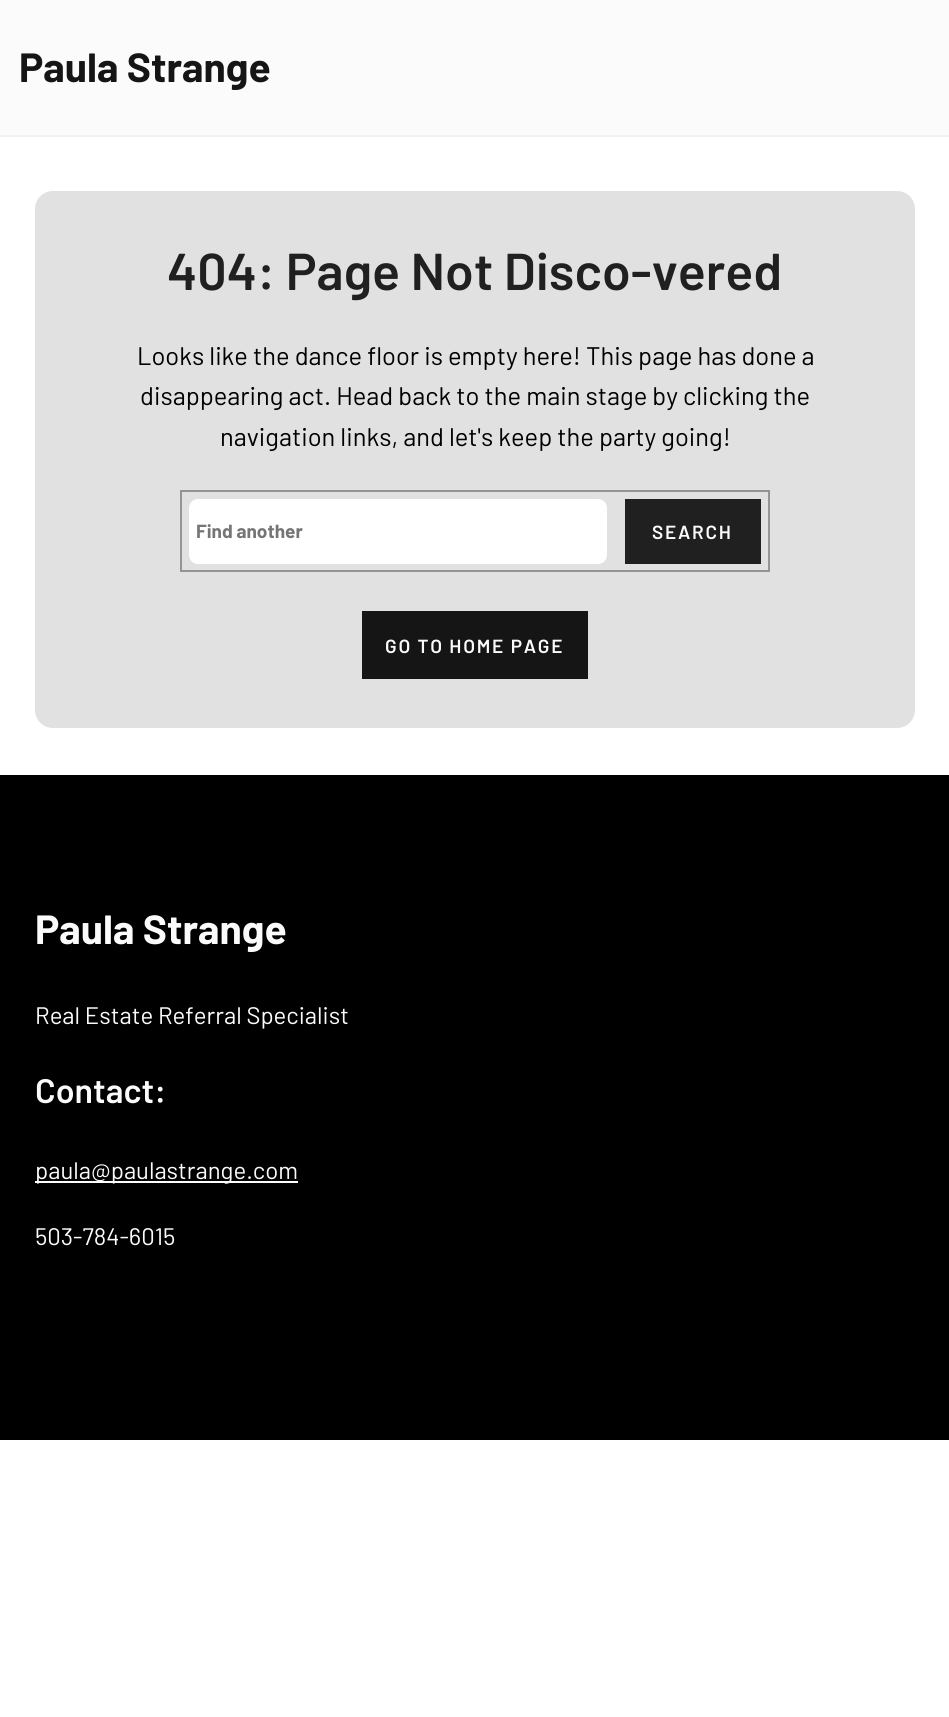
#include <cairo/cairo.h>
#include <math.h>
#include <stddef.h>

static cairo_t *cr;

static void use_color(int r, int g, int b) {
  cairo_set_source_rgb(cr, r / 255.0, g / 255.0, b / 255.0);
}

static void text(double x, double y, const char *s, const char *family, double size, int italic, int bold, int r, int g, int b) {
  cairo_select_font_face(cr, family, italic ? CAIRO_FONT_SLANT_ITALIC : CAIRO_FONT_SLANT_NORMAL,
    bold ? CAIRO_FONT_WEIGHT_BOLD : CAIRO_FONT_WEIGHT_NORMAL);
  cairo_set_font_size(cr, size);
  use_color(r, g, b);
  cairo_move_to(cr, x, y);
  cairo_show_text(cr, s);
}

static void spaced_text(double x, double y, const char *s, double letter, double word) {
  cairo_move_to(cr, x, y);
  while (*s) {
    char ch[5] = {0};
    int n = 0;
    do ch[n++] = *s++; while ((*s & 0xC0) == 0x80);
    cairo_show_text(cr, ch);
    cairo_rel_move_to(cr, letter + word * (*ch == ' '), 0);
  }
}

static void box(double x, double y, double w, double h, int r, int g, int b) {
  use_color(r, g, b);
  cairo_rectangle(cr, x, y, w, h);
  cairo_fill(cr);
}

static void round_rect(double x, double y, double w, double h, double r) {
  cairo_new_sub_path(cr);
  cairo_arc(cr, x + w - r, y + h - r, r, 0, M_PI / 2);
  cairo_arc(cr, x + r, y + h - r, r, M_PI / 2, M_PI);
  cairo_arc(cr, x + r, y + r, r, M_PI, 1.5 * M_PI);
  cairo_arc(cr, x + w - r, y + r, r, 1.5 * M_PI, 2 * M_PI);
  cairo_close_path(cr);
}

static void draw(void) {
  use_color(255, 255, 255);
  cairo_paint(cr);
  cairo_rectangle(cr, -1, -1, 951, 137);
  use_color(242, 242, 242);
  cairo_stroke(cr);
  box(0, 0, 949, 135, 251, 251, 251);
  use_color(225, 225, 225);
  round_rect(35, 191, 880, 537, 18);
  cairo_fill(cr);
  cairo_rectangle(cr, 181, 491, 588, 80);
  use_color(148, 148, 148);
  cairo_stroke(cr);
  use_color(255, 255, 255);
  round_rect(189, 499, 418, 65, 9);
  cairo_fill(cr);
  box(625, 499, 136, 65, 32, 32, 32);
  box(362, 611, 226, 68, 21, 21, 21);
  box(0, 775, 949, 665, 0, 0, 0);
  box(35, 1181, 263, 2, 255, 255, 255);
  text(19, 82, "Paula Strange", "Barlow", 40.75, 0, 1, 21, 21, 21);
  text(167, 290, "404: Page Not Disco-vered", "Barlow SemiBold", 51.8, 0, 0, 32, 32, 32);
  text(137, 365, "Looks like the dance floor is empty here! This page has done a", "Barlow", 25.45, 0, 0, 0, 0, 0);
  text(140, 405, "disappearing act. Head back to the main stage by clicking the", "Barlow", 25.45, 0, 0, 0, 0, 0);
  text(220, 446, "navigation links, and let's keep the party going!", "Barlow", 25.45, 0, 0, 0, 0, 0);
  text(196, 538, "Find another", "Barlow", 19, 0, 1, 117, 117, 117);
  cairo_select_font_face(cr, "Barlow SemiBold", CAIRO_FONT_SLANT_NORMAL, CAIRO_FONT_WEIGHT_NORMAL);
  use_color(251, 251, 251);
  spaced_text(652, 539, "SEARCH", 1.75, 0);
  spaced_text(385, 653, "GO TO HOME PAGE", 1.75, 0);
  text(35, 944, "Paula Strange", "Barlow", 40.75, 0, 1, 251, 251, 251);
  text(35, 1024, "Real Estate Referral Specialist", "Barlow", 23.9, 0, 0, 251, 251, 251);
  text(35, 1103, "Contact:", "Barlow SemiBold", 34, 0, 0, 251, 251, 251);
  text(35, 1179, "paula@paulastrange.com", "Barlow", 23.9, 0, 0, 251, 251, 251);
  text(35, 1245, "503-784-6015", "Barlow", 23.9, 0, 0, 251, 251, 251);
}

int main(void) {
  cairo_surface_t *surface = cairo_image_surface_create(CAIRO_FORMAT_RGB24, 949, 1717);
  cr = cairo_create(surface);
  cairo_font_options_t *options = cairo_font_options_create();
  cairo_font_options_set_hint_metrics(options, CAIRO_HINT_METRICS_OFF);
  cairo_font_options_set_hint_style(options, CAIRO_HINT_STYLE_NONE);
  cairo_set_font_options(cr, options);
  cairo_set_miter_limit(cr, 4);
  draw();
  cairo_surface_write_to_png(surface, "out.png");
  cairo_font_options_destroy(options);
  cairo_destroy(cr);
  cairo_surface_destroy(surface);
  return 0;
}
